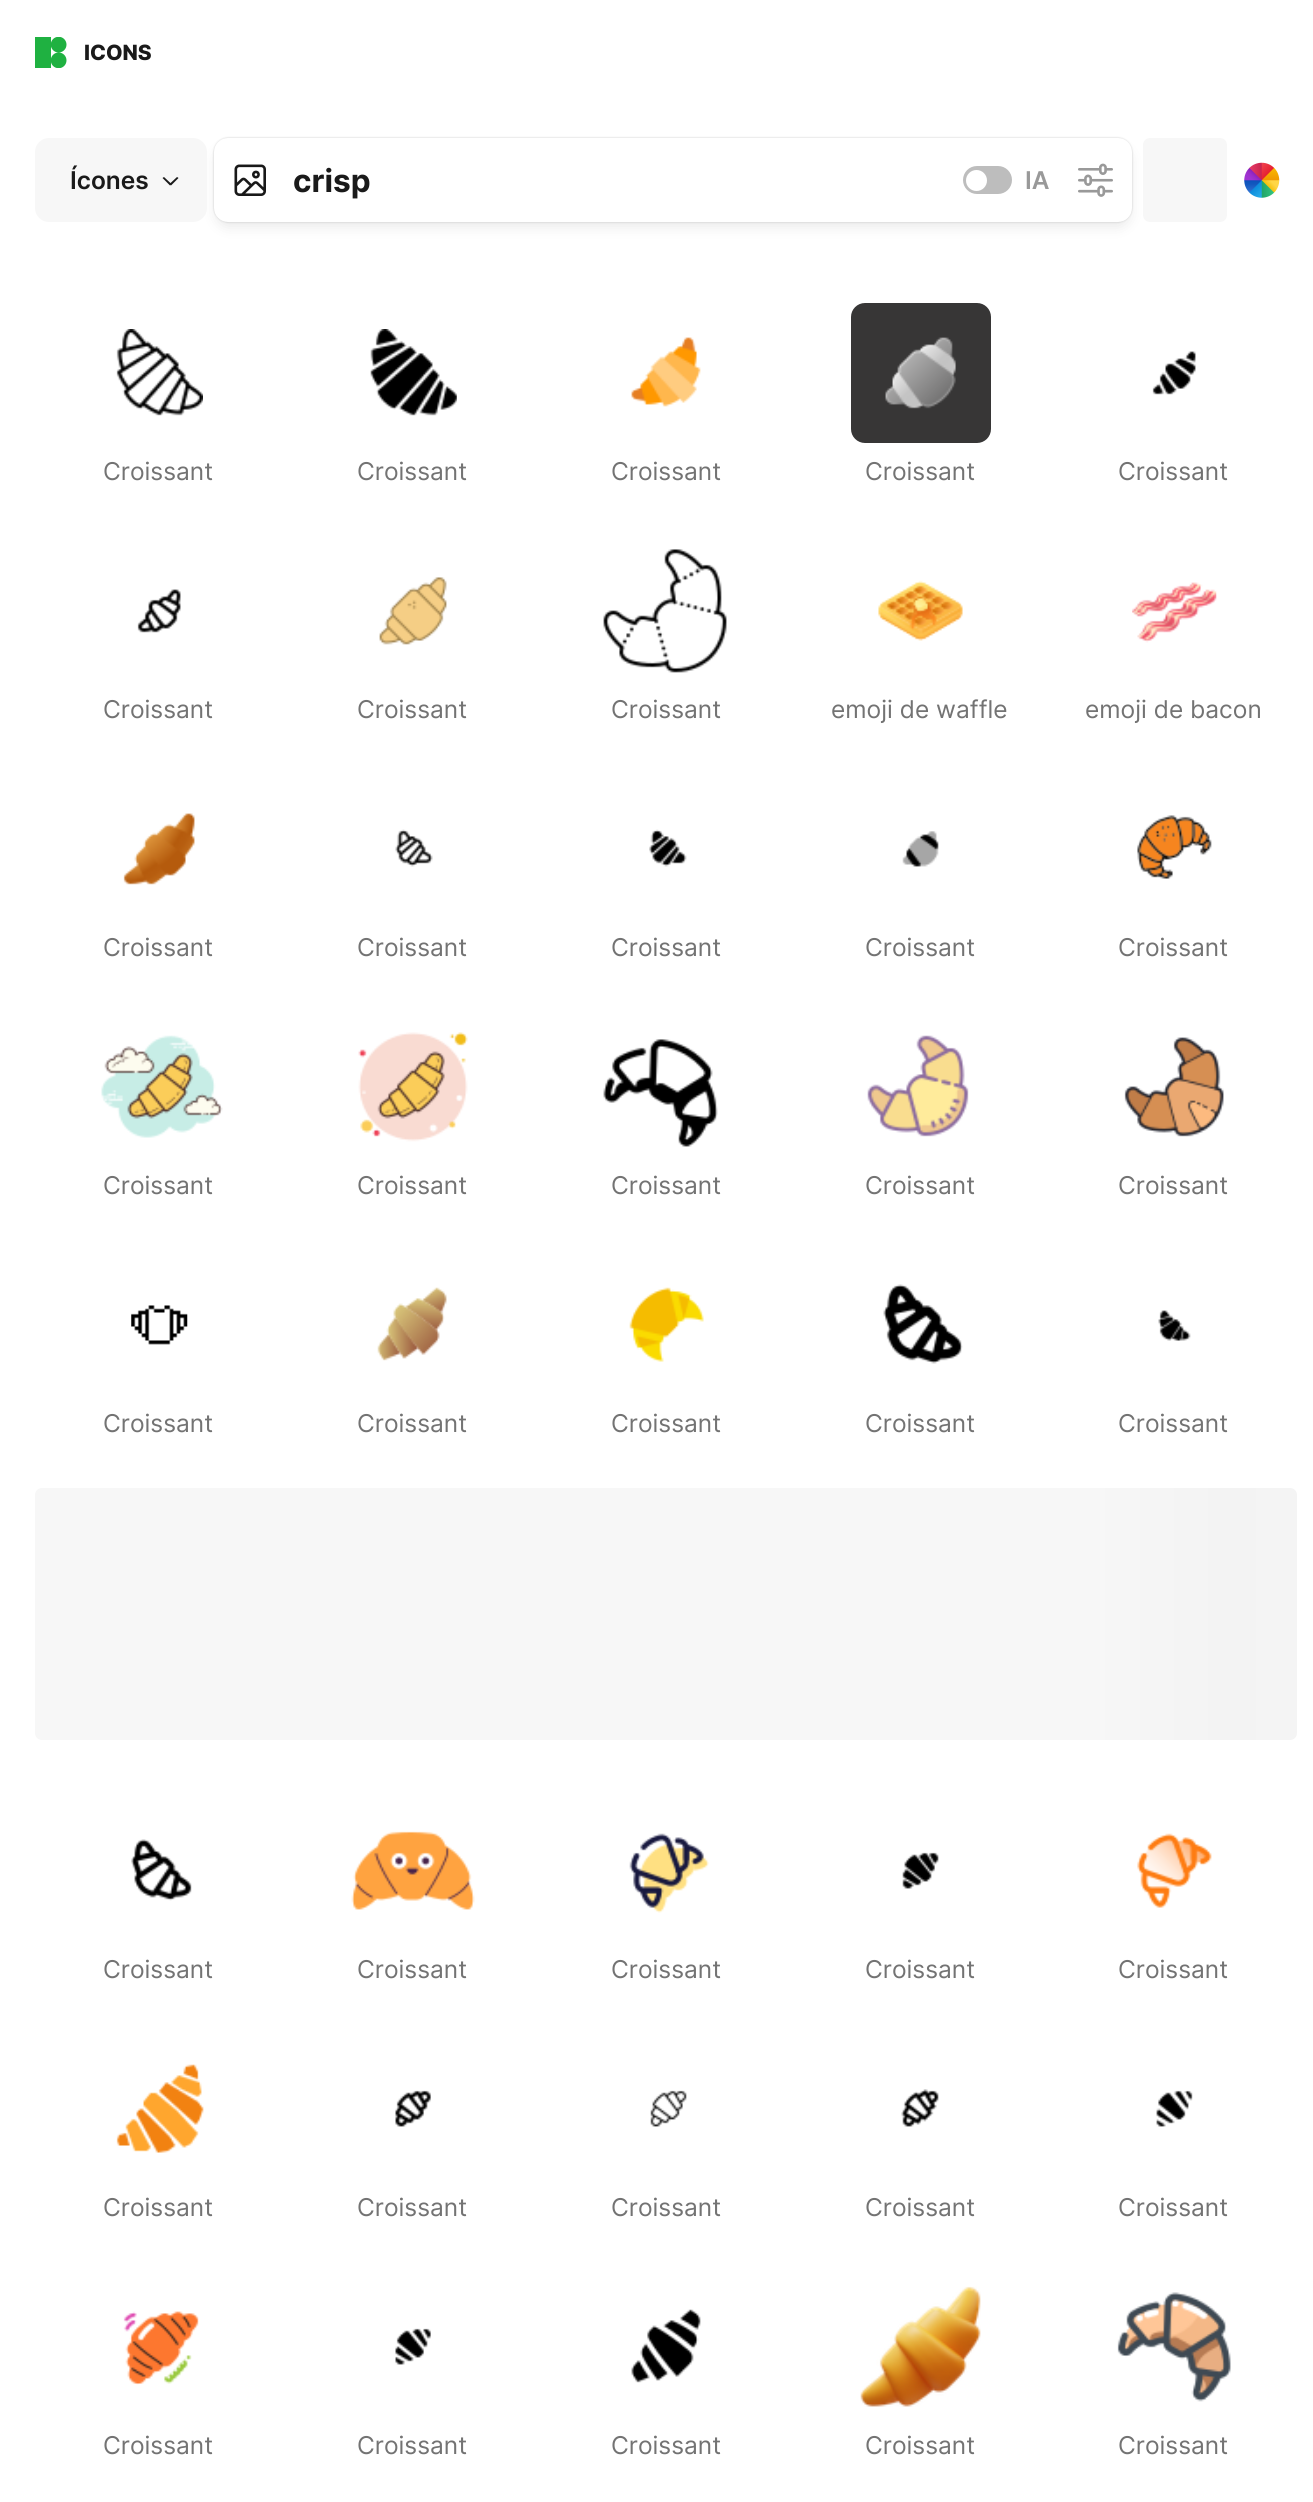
#include <cairo/cairo.h>
#include <math.h>
#include <stddef.h>

static cairo_t *cr;

static void use_color(int r, int g, int b) {
  cairo_set_source_rgb(cr, r / 255.0, g / 255.0, b / 255.0);
}

static void text(double x, double y, const char *s, const char *family, double size, int italic, int bold, int r, int g, int b) {
  cairo_select_font_face(cr, family, italic ? CAIRO_FONT_SLANT_ITALIC : CAIRO_FONT_SLANT_NORMAL,
    bold ? CAIRO_FONT_WEIGHT_BOLD : CAIRO_FONT_WEIGHT_NORMAL);
  cairo_set_font_size(cr, size);
  use_color(r, g, b);
  cairo_move_to(cr, x, y);
  cairo_show_text(cr, s);
}

static void round_rect(double x, double y, double w, double h, double r) {
  cairo_new_sub_path(cr);
  cairo_arc(cr, x + w - r, y + h - r, r, 0, M_PI / 2);
  cairo_arc(cr, x + r, y + h - r, r, M_PI / 2, M_PI);
  cairo_arc(cr, x + r, y + r, r, M_PI, 1.5 * M_PI);
  cairo_arc(cr, x + w - r, y + r, r, 1.5 * M_PI, 2 * M_PI);
  cairo_close_path(cr);
}

static void shadow(double x, double y, double w, double h, double r, double blur, double alpha) {
  cairo_push_group_with_content(cr, CAIRO_CONTENT_ALPHA);
  cairo_set_operator(cr, CAIRO_OPERATOR_SOURCE);
  for (int i = 15; i >= -15 && fmin(w, h) + blur * i / 3 > 0; i -= 2) {
    double e = blur * i / 6;
    cairo_set_source_rgba(cr, 0, 0, 0, alpha * erfc((i - 1) / 8.5) / 2);
    round_rect(x - e, y - e, w + 2 * e, h + 2 * e, fmax(0, fmin(r + e + blur * .6, fmin(w, h) / 2 + e)));
    cairo_fill(cr);
  }
  cairo_pattern_t *soft = cairo_pop_group(cr);
  cairo_mask(cr, soft);
  cairo_pattern_destroy(soft);
}

static void picture(const char *path, double x, double y, double w, double h) {
  cairo_surface_t *image = cairo_image_surface_create_from_png(path);
  cairo_save(cr);
  cairo_set_source_surface(cr, image, x, y);
  cairo_rectangle(cr, x, y, w, h);
  cairo_fill(cr);
  cairo_restore(cr);
  cairo_surface_destroy(image);
}

static void draw(void) {
  cairo_pattern_t *gradient;
  use_color(255, 255, 255);
  cairo_paint(cr);
  picture("img_01.png", 35, 37, 32, 31);
  use_color(247, 247, 247);
  round_rect(1143, 138, 84, 84, 7);
  cairo_fill(cr);
  use_color(96, 96, 96);
  shadow(217, 149, 912, 77, 11, 7, 0.15);
  use_color(247, 247, 247);
  round_rect(35, 138, 172, 84, 14);
  cairo_fill(cr);
  use_color(26, 26, 26);
  cairo_new_path(cr);
  cairo_move_to(cr, 164, 177);
  cairo_line_to(cr, 171.5, 184);
  cairo_line_to(cr, 170, 185.5);
  cairo_line_to(cr, 162.5, 178);
  cairo_close_path(cr);
  cairo_fill(cr);
  cairo_new_path(cr);
  cairo_move_to(cr, 169.5, 184);
  cairo_line_to(cr, 177, 177);
  cairo_line_to(cr, 178.5, 178);
  cairo_line_to(cr, 171, 185.5);
  cairo_close_path(cr);
  cairo_fill(cr);
  use_color(96, 96, 96);
  shadow(214, 138, 918, 84, 14, 1, 0.31);
  use_color(255, 255, 255);
  round_rect(214, 138, 918, 84, 14);
  cairo_fill(cr);
  picture("img_02.png", 234, 164, 32, 32);
  use_color(189, 189, 189);
  round_rect(963, 166, 49, 28, 14);
  cairo_fill(cr);
  use_color(255, 255, 255);
  cairo_arc(cr, 976.5, 180.5, 10.5, 0, 2 * M_PI);
  cairo_fill(cr);
  picture("img_03.png", 1078, 163, 35, 34);
  picture("img_04.png", 1244, 162, 36, 36);
  picture("img_05.png", 116, 329, 87, 87);
  picture("img_06.png", 370, 329, 87, 87);
  picture("img_07.png", 631, 337, 70, 70);
  use_color(55, 54, 54);
  round_rect(851, 303, 140, 140, 14);
  cairo_fill(cr);
  picture("img_08.png", 885, 337, 71, 72);
  picture("img_09.png", 1152, 351, 44, 44);
  picture("img_10.png", 137, 589, 44, 44);
  picture("img_11.png", 379, 577, 68, 68);
  picture("img_12.png", 603, 549, 124, 124);
  picture("img_13.png", 878, 580, 85, 61);
  picture("img_14.png", 1132, 582, 85, 61);
  picture("img_15.png", 123, 813, 72, 72);
  picture("img_16.png", 395, 829, 38, 38);
  picture("img_17.png", 649, 829, 38, 38);
  picture("img_18.png", 902, 831, 37, 36);
  picture("img_19.png", 1137, 815, 75, 64);
  picture("img_20.png", 101, 1035, 122, 103);
  picture("img_21.png", 358, 1032, 110, 110);
  picture("img_22.png", 603, 1039, 115, 108);
  picture("img_23.png", 867, 1035, 102, 102);
  picture("img_24.png", 1124, 1037, 100, 100);
  picture("img_25.png", 131, 1305, 57, 40);
  picture("img_26.png", 377, 1287, 70, 74);
  picture("img_27.png", 629, 1287, 75, 75);
  picture("img_28.png", 883, 1284, 80, 80);
  picture("img_29.png", 1158, 1310, 33, 31);
  gradient = cairo_pattern_create_linear(-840, 1579, 910, 1579);
  cairo_pattern_add_color_stop_rgba(gradient, 0.1, 0.969, 0.969, 0.969, 1);
  cairo_pattern_add_color_stop_rgba(gradient, 0.18, 0.953, 0.953, 0.953, 1);
  cairo_pattern_add_color_stop_rgba(gradient, 0.33, 0.969, 0.969, 0.969, 1);
  cairo_set_source(cr, gradient);
  cairo_pattern_destroy(gradient);
  cairo_new_path(cr);
  cairo_move_to(cr, 42, 1488);
  cairo_line_to(cr, 910, 1488);
  cairo_line_to(cr, 910, 1740);
  cairo_line_to(cr, 42, 1740);
  cairo_curve_to(cr, 38, 1740, 35, 1737, 35, 1733);
  cairo_line_to(cr, 35, 1495);
  cairo_curve_to(cr, 35, 1491, 38, 1488, 42, 1488);
  cairo_close_path(cr);
  cairo_fill(cr);
  gradient = cairo_pattern_create_linear(910, 1579, 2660, 1579);
  cairo_pattern_add_color_stop_rgba(gradient, 0.1, 0.969, 0.969, 0.969, 1);
  cairo_pattern_add_color_stop_rgba(gradient, 0.18, 0.953, 0.953, 0.953, 1);
  cairo_pattern_add_color_stop_rgba(gradient, 0.33, 0.969, 0.969, 0.969, 1);
  cairo_set_source(cr, gradient);
  cairo_pattern_destroy(gradient);
  cairo_new_path(cr);
  cairo_move_to(cr, 910, 1488);
  cairo_line_to(cr, 1290, 1488);
  cairo_curve_to(cr, 1294, 1488, 1297, 1491, 1297, 1495);
  cairo_line_to(cr, 1297, 1733);
  cairo_curve_to(cr, 1297, 1737, 1294, 1740, 1290, 1740);
  cairo_line_to(cr, 910, 1740);
  cairo_close_path(cr);
  cairo_fill(cr);
  picture("img_30.png", 131, 1839, 61, 62);
  picture("img_31.png", 351, 1831, 124, 79);
  picture("img_32.png", 629, 1833, 80, 80);
  picture("img_33.png", 902, 1852, 37, 37);
  picture("img_34.png", 1137, 1833, 75, 75);
  picture("img_35.png", 116, 2064, 88, 89);
  picture("img_36.png", 395, 2090, 36, 37);
  picture("img_37.png", 650, 2090, 37, 37);
  picture("img_38.png", 901, 2089, 38, 38);
  picture("img_39.png", 1156, 2090, 37, 37);
  picture("img_40.png", 123, 2311, 76, 74);
  picture("img_41.png", 395, 2328, 36, 37);
  picture("img_42.png", 631, 2309, 70, 74);
  picture("img_43.png", 860, 2286, 121, 121);
  picture("img_44.png", 1117, 2292, 114, 110);
  text(84, 60, "ICONS", "Inter ExtraBold", 21, 0, 0, 26, 26, 26);
  text(70, 189, "Ícones", "Inter SemiBold", 24.5, 0, 0, 26, 26, 26);
  text(293, 192, "crisp", "Inter", 31.5, 0, 1, 26, 26, 26);
  text(1025, 189, "IA", "Inter SemiBold", 24.5, 0, 0, 153, 153, 153);
  text(103, 480, "Croissant", "Inter", 24.5, 0, 0, 115, 115, 115);
  text(357, 480, "Croissant", "Inter", 24.5, 0, 0, 115, 115, 115);
  text(611, 480, "Croissant", "Inter", 24.5, 0, 0, 115, 115, 115);
  text(865, 480, "Croissant", "Inter", 24.5, 0, 0, 115, 115, 115);
  text(1118, 480, "Croissant", "Inter", 24.5, 0, 0, 115, 115, 115);
  text(103, 718, "Croissant", "Inter", 24.5, 0, 0, 115, 115, 115);
  text(357, 718, "Croissant", "Inter", 24.5, 0, 0, 115, 115, 115);
  text(611, 718, "Croissant", "Inter", 24.5, 0, 0, 115, 115, 115);
  text(831, 718, "emoji de waffle", "Inter", 24.5, 0, 0, 115, 115, 115);
  text(1085, 718, "emoji de bacon", "Inter", 24.5, 0, 0, 115, 115, 115);
  text(103, 956, "Croissant", "Inter", 24.5, 0, 0, 115, 115, 115);
  text(357, 956, "Croissant", "Inter", 24.5, 0, 0, 115, 115, 115);
  text(611, 956, "Croissant", "Inter", 24.5, 0, 0, 115, 115, 115);
  text(865, 956, "Croissant", "Inter", 24.5, 0, 0, 115, 115, 115);
  text(1118, 956, "Croissant", "Inter", 24.5, 0, 0, 115, 115, 115);
  text(103, 1194, "Croissant", "Inter", 24.5, 0, 0, 115, 115, 115);
  text(357, 1194, "Croissant", "Inter", 24.5, 0, 0, 115, 115, 115);
  text(611, 1194, "Croissant", "Inter", 24.5, 0, 0, 115, 115, 115);
  text(865, 1194, "Croissant", "Inter", 24.5, 0, 0, 115, 115, 115);
  text(1118, 1194, "Croissant", "Inter", 24.5, 0, 0, 115, 115, 115);
  text(103, 1432, "Croissant", "Inter", 24.5, 0, 0, 115, 115, 115);
  text(357, 1432, "Croissant", "Inter", 24.5, 0, 0, 115, 115, 115);
  text(611, 1432, "Croissant", "Inter", 24.5, 0, 0, 115, 115, 115);
  text(865, 1432, "Croissant", "Inter", 24.5, 0, 0, 115, 115, 115);
  text(1118, 1432, "Croissant", "Inter", 24.5, 0, 0, 115, 115, 115);
  text(103, 1978, "Croissant", "Inter", 24.5, 0, 0, 115, 115, 115);
  text(357, 1978, "Croissant", "Inter", 24.5, 0, 0, 115, 115, 115);
  text(611, 1978, "Croissant", "Inter", 24.5, 0, 0, 115, 115, 115);
  text(865, 1978, "Croissant", "Inter", 24.5, 0, 0, 115, 115, 115);
  text(1118, 1978, "Croissant", "Inter", 24.5, 0, 0, 115, 115, 115);
  text(103, 2216, "Croissant", "Inter", 24.5, 0, 0, 115, 115, 115);
  text(357, 2216, "Croissant", "Inter", 24.5, 0, 0, 115, 115, 115);
  text(611, 2216, "Croissant", "Inter", 24.5, 0, 0, 115, 115, 115);
  text(865, 2216, "Croissant", "Inter", 24.5, 0, 0, 115, 115, 115);
  text(1118, 2216, "Croissant", "Inter", 24.5, 0, 0, 115, 115, 115);
  text(103, 2454, "Croissant", "Inter", 24.5, 0, 0, 115, 115, 115);
  text(357, 2454, "Croissant", "Inter", 24.5, 0, 0, 115, 115, 115);
  text(611, 2454, "Croissant", "Inter", 24.5, 0, 0, 115, 115, 115);
  text(865, 2454, "Croissant", "Inter", 24.5, 0, 0, 115, 115, 115);
  text(1118, 2454, "Croissant", "Inter", 24.5, 0, 0, 115, 115, 115);
}

int main(void) {
  cairo_surface_t *surface = cairo_image_surface_create(CAIRO_FORMAT_RGB24, 1313, 2502);
  cr = cairo_create(surface);
  cairo_font_options_t *options = cairo_font_options_create();
  cairo_font_options_set_hint_metrics(options, CAIRO_HINT_METRICS_OFF);
  cairo_font_options_set_hint_style(options, CAIRO_HINT_STYLE_NONE);
  cairo_set_font_options(cr, options);
  cairo_set_miter_limit(cr, 4);
  draw();
  cairo_surface_write_to_png(surface, "out.png");
  cairo_font_options_destroy(options);
  cairo_destroy(cr);
  cairo_surface_destroy(surface);
  return 0;
}
